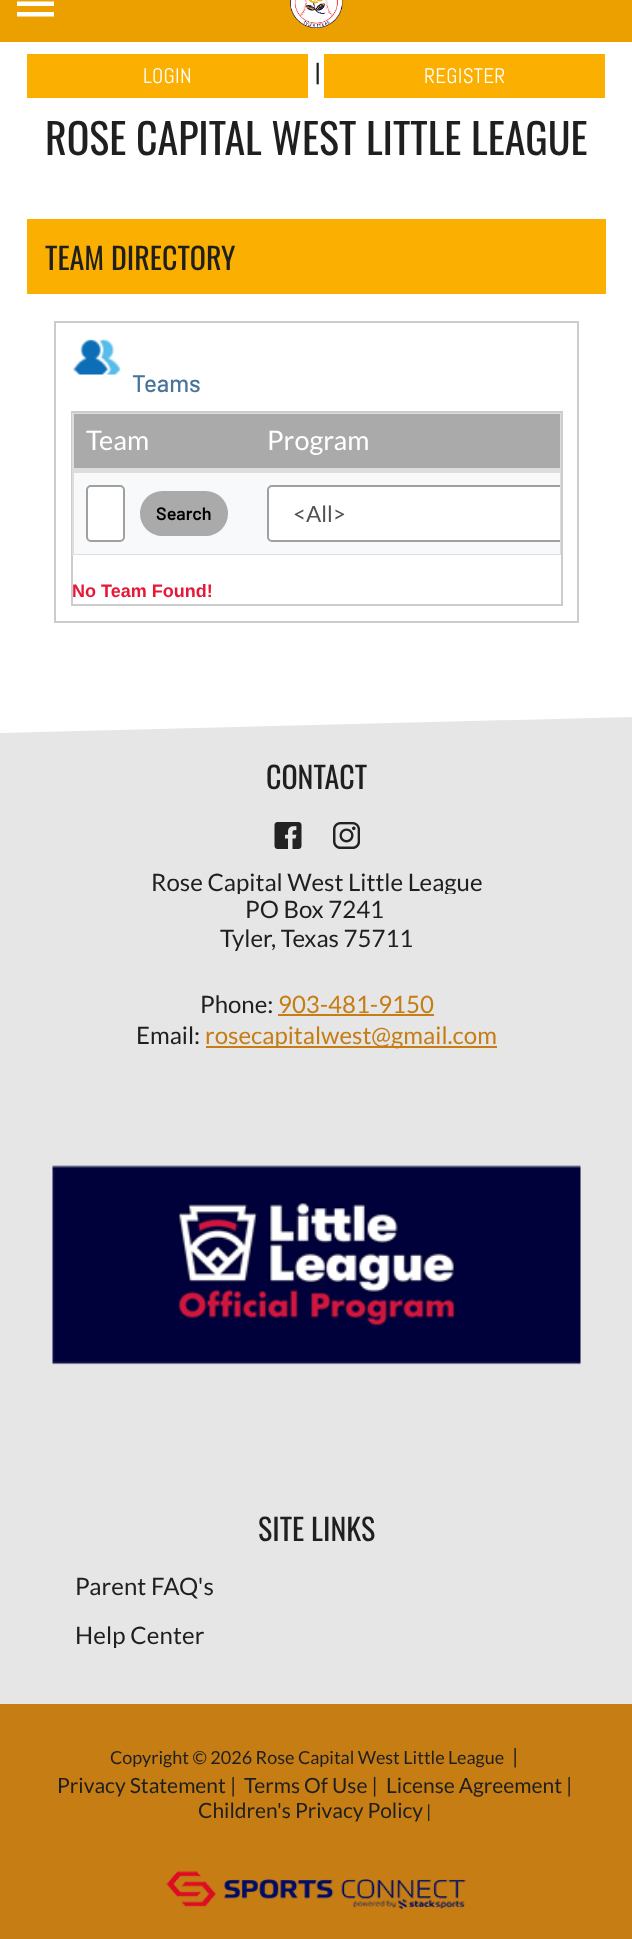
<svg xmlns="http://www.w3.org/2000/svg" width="632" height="1939">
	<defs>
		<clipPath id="clip1"><rect x="17" y="0" width="37" height="23" /></clipPath>
		<clipPath id="clip2"><rect x="74" y="414" width="486" height="140" /></clipPath>
		<clipPath id="clip3"><rect x="75" y="858" width="483" height="36" /></clipPath>
	</defs>
	<rect width="100%" height="100%" fill="#FFFFFF" />
	<rect x="0" y="0" width="632" height="42" fill="#EBA000" />
	<g clip-path="url(#clip1)">
		<path d="M16.5-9H54V-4.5H16.5ZM16.5 1.5H54V6H16.5ZM16.5 12H54V16.5H16.5Z" fill="#FFFFFF" />
	</g>
	<image x="290" y="0" width="53" height="28" href="assets/img1.png" />
	<rect x="27" y="54" width="281" height="44" fill="#FBAF00" />
	<text x="143" y="83" font-family="Abel" font-size="21" letter-spacing="0.25" fill="#FFFFFF">LOGIN</text>
	<text x="315" y="81" font-family="Oswald" font-size="22.5" fill="#1F1F1F">|</text>
	<rect x="324" y="54" width="281" height="44" fill="#FBAF00" />
	<text x="424" y="83" font-family="Abel" font-size="21" letter-spacing="0.25" fill="#FFFFFF">REGISTER</text>
	<text x="45" y="155" font-family="Oswald" font-size="42" fill="#1F1F1F">ROSE CAPITAL WEST LITTLE LEAGUE</text>
	<rect x="27" y="219" width="579" height="75" fill="#FBAF00" />
	<text x="45" y="270" font-family="Oswald" font-size="30" fill="#1F1F1F">TEAM DIRECTORY</text>
	<rect x="55" y="322" width="523" height="300" fill="none" stroke="#CCCCCC" stroke-width="2" />
	<image x="73" y="339" width="48" height="36" href="assets/img2.png" />
	<text x="132" y="392" font-family="Barlow" font-size="24" font-weight="500" fill="#48749B">Teams</text>
	<rect x="72" y="412" width="490" height="193" fill="none" stroke="#CCCCCC" stroke-width="2" />
	<rect x="73" y="414" width="487" height="140" fill="none" stroke="#DDDDDD" stroke-width="2" />
	<rect x="74" y="414" width="486" height="54" fill="#AAAAAA" />
	<rect x="74" y="468" width="486" height="3" fill="#DDDDDD" />
	<g font-family="Lato" font-size="27" fill="#FFFFFF">
		<text x="86" y="450">Team</text>
		<text x="267" y="450">Program</text>
	</g>
	<rect x="74" y="473" width="486" height="81" fill="#F8F9FA" />
	<rect x="74" y="471" width="486" height="2" fill="#DDDDDD" />
	<rect x="87" y="486" width="37" height="55" rx="4" fill="#FFFFFF" stroke="#A0A0A0" stroke-width="2" />
	<rect x="141" y="492" width="86" height="43" rx="21.5" fill="#AAAAAA" stroke="#AAAAAA" stroke-width="2" />
	<text x="156" y="520" font-family="Barlow" font-size="18" font-weight="600" fill="#000000">Search</text>
	<path d="M272 485H560V542H272C269 542 267 540 267 537V490C267 487 269 485 272 485Z" fill="#FFFFFF" />
	<g clip-path="url(#clip2)">
		<rect x="268" y="486" width="313" height="55" rx="4" fill="none" stroke="#A0A0A0" stroke-width="2" />
	</g>
	<text x="293" y="522" font-family="Lato" font-size="22.5" fill="#525252">&lt;All&gt;</text>
	<text x="72" y="597" font-family="Liberation Sans" font-size="18" font-weight="700" fill="#E51937">No Team Found!</text>
	<path d="M0 733V1704H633V717Z" fill="#E6E6E6" />
	<text x="266" y="789" font-family="Oswald" font-size="30" fill="#1F1F1F">CONTACT</text>
	<image x="274" y="822" width="28" height="27" href="assets/img3.png" />
	<image x="333" y="822" width="27" height="27" href="assets/img4.png" />
	<g clip-path="url(#clip3)">
		<text x="151" y="891" font-family="Lato" font-size="24" fill="#1F1F1F">Rose Capital West Little League</text>
	</g>
	<g font-family="Lato" font-size="24" fill="#1F1F1F">
		<text x="245" y="918">PO Box 7241</text>
		<text x="220" y="947">Tyler, Texas 75711</text>
		<text x="200" y="1013">Phone:</text>
	</g>
	<text x="278" y="1013" font-family="Lato" font-size="24" fill="#C57D14">903-481-9150</text>
	<rect x="278" y="1014" width="156" height="2" fill="#C57D14" />
	<text x="136" y="1044" font-family="Lato" font-size="24" fill="#1F1F1F">Email:</text>
	<rect x="206" y="1046" width="291" height="2" fill="#C57D14" />
	<text x="205" y="1044" font-family="Lato" font-size="24" fill="#C57D14">rosecapitalwest@gmail.com</text>
	<image x="52" y="1165" width="529" height="200" href="assets/img5.png" />
	<text x="258" y="1541" font-family="Oswald" font-size="30" fill="#1F1F1F">SITE LINKS</text>
	<g font-family="Lato" font-size="24" letter-spacing="0.1" fill="#1F1F1F">
		<text x="75" y="1595">Parent FAQ's</text>
		<text x="75" y="1644">Help Center</text>
	</g>
	<rect x="0" y="1704" width="632" height="235" fill="#C57D14" />
	<text x="110" y="1764" font-family="Lato" font-size="18" fill="#1F1F1F">Copyright © 2026 Rose Capital West Little League</text>
	<g font-family="Lato" font-size="21" fill="#1F1F1F">
		<text x="512" y="1764">|</text>
		<text x="57" y="1793">Privacy Statement |</text>
		<text x="244" y="1793">Terms Of Use |</text>
		<text x="386" y="1793">License Agreement |</text>
		<text x="198" y="1818">Children's Privacy Policy</text>
	</g>
	<text x="426" y="1818" font-family="Lato" font-size="18" fill="#1F1F1F">|</text>
	<image x="166" y="1871" width="300" height="38" href="assets/img6.png" />
</svg>
